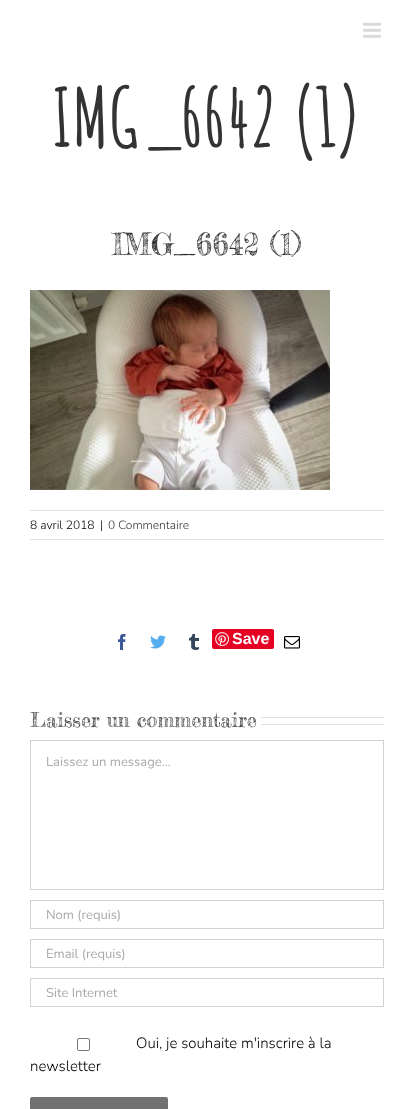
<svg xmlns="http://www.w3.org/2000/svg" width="414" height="1109">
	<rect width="100%" height="100%" fill="#FFFFFF" />
	<image x="363" y="22" width="18" height="16" href="assets/img1.png" />
	<text x="52" y="147" font-family="Amatic SC" font-size="80" font-weight="700" fill="#333333">IMG_6642 (1)</text>
	<text x="112" y="255" font-family="Fredericka the Great" font-size="30" fill="#333333">IMG_6642 (1)</text>
	<image x="30" y="290" width="300" height="200" href="assets/img2.png" />
	<rect x="30" y="510" width="354" height="1" fill="#E0DEDE" />
	<rect x="30" y="539" width="354" height="1" fill="#E0DEDE" />
	<g font-family="Nunito" font-size="12" font-weight="300" fill="#000000">
		<text x="30" y="529">8 avril 2018</text>
		<text x="100" y="529">|</text>
	</g>
	<text x="108" y="529" font-family="Nunito" font-size="12" font-weight="300" fill="#333333">0 Commentaire</text>
	<image x="118" y="634" width="8" height="16" href="assets/img3.png" />
	<image x="150" y="635" width="16" height="14" href="assets/img4.png" />
	<image x="189" y="634" width="10" height="16" href="assets/img5.png" />
	<rect x="212" y="629" width="62" height="20" rx="2" fill="#E60023" />
	<image x="215" y="632" width="14" height="14" href="assets/img6.png" />
	<text x="232" y="644" font-family="Liberation Sans" font-size="16" font-weight="700" fill="#FFFFFF">Save</text>
	<image x="284" y="636" width="16" height="13" href="assets/img7.png" />
	<text x="30" y="727" font-family="Fredericka the Great" font-size="20" fill="#333333">Laisser un commentaire</text>
	<rect x="261" y="717" width="123" height="1" fill="#E0DEDE" />
	<rect x="261" y="724" width="123" height="1" fill="#E0DEDE" />
	<rect x="30.5" y="740.5" width="353" height="149" fill="none" stroke="#D2D2D2" />
	<text x="46" y="766" font-family="Nunito" font-size="13" fill="#AAA9A9">Laissez un message...</text>
	<rect x="30.5" y="900.5" width="353" height="28" fill="none" stroke="#D2D2D2" />
	<text x="46" y="919" font-family="Nunito" font-size="13" fill="#AAA9A9">Nom (requis)</text>
	<rect x="30.5" y="939.5" width="353" height="28" fill="none" stroke="#D2D2D2" />
	<text x="46" y="958" font-family="Nunito" font-size="13" fill="#AAA9A9">Email (requis)</text>
	<rect x="30.5" y="978.5" width="353" height="28" fill="none" stroke="#D2D2D2" />
	<text x="46" y="997" font-family="Nunito" font-size="13" fill="#AAA9A9">Site Internet</text>
	<rect x="77.5" y="1038.5" width="12" height="12" rx="1.5" fill="none" stroke="#767676" />
	<g font-family="Nunito" font-size="15" font-weight="300" fill="#000000">
		<text x="136" y="1048">Oui, je souhaite m'inscrire à la</text>
		<text x="30" y="1071">newsletter</text>
	</g>
	<rect x="30" y="1097" width="138" height="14" rx="2" fill="#727272" />
</svg>
